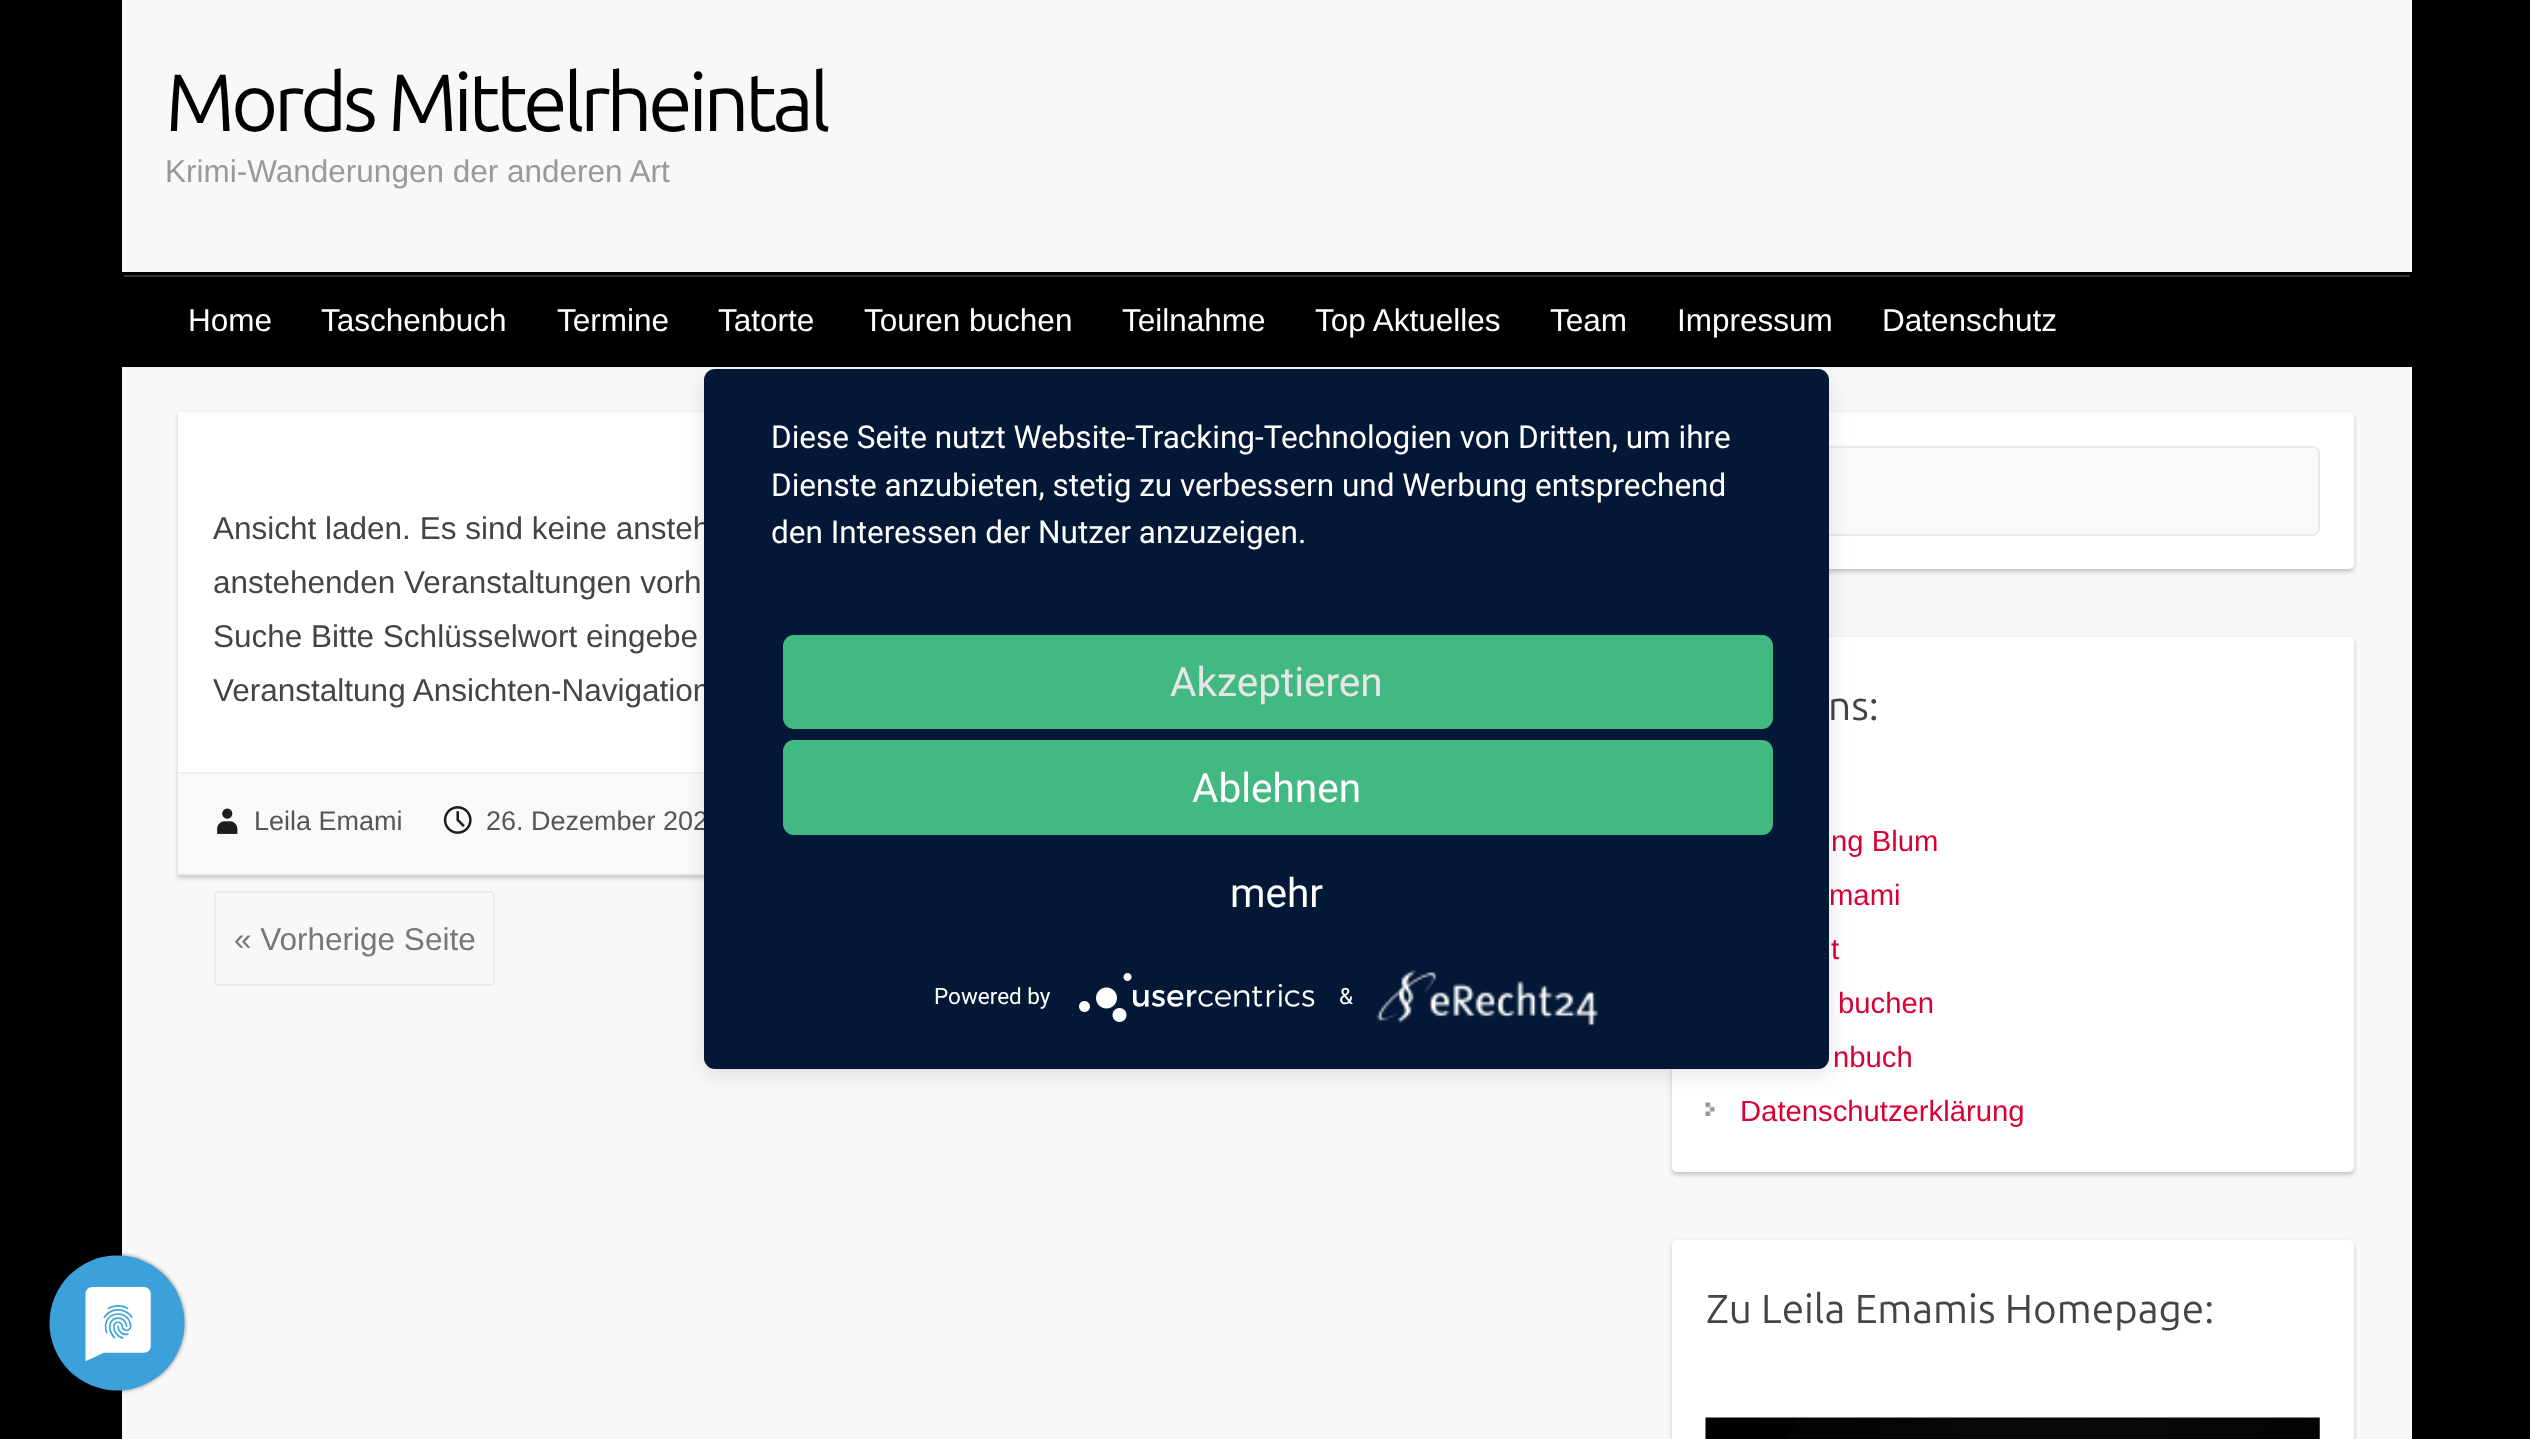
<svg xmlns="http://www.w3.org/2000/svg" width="2530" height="1439">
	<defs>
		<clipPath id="clip1"><rect x="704" y="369" width="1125" height="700" rx="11" /></clipPath>
	</defs>
	<rect width="100%" height="100%" fill="#000000" />
	<rect x="122" y="0" width="2290" height="1439" fill="#F8F8F8" />
	<text x="165" y="131" font-family="Ubuntu" font-size="81" letter-spacing="-4.5" fill="#000000">Mords Mittelrheintal</text>
	<text x="165" y="182" font-family="Liberation Sans" font-size="31.5" fill="#999999">Krimi-Wanderungen der anderen Art</text>
	<rect x="122" y="272" width="2290" height="95" fill="#000000" />
	<rect x="124" y="275" width="2286" height="2" fill="#333333" />
	<g font-family="Liberation Sans" font-size="31.5" fill="#FFFFFF">
		<text x="188" y="331">Home</text>
		<text x="321" y="331">Taschenbuch</text>
		<text x="557" y="331">Termine</text>
		<text x="718" y="331">Tatorte</text>
		<text x="864" y="331">Touren buchen</text>
		<text x="1122" y="331">Teilnahme</text>
		<text x="1315" y="331">Top Aktuelles</text>
		<text x="1550" y="331">Team</text>
		<text x="1677" y="331">Impressum</text>
		<text x="1882" y="331">Datenschutz</text>
	</g>
	<rect x="178" y="414" width="1429" height="464" fill="#000000" fill-opacity="0.2" filter="blur(2px)" />
	<rect x="178" y="412" width="526" height="360" fill="#FFFFFF" />
	<g font-family="Liberation Sans" font-size="31.5" fill="#444444">
		<text x="213" y="539">Ansicht laden. Es sind keine ansteh</text>
		<text x="213" y="593">anstehenden Veranstaltungen vorh</text>
		<text x="213" y="647">Suche Bitte Schlüsselwort eingebe</text>
		<text x="213" y="701">Veranstaltung Ansichten-Navigation</text>
	</g>
	<rect x="178" y="774" width="526" height="99" fill="#F9F9F9" />
	<rect x="178" y="772" width="526" height="2" fill="#F0F0F0" />
	<rect x="178" y="873" width="526" height="2" fill="#F0F0F0" />
	<image x="217" y="808" width="21" height="26" href="assets/img1.png" />
	<text x="254" y="830" font-family="Liberation Sans" font-size="27" fill="#555555">Leila Emami</text>
	<image x="443" y="806" width="29" height="28" href="assets/img2.png" />
	<text x="486" y="830" font-family="Liberation Sans" font-size="27" fill="#555555">26. Dezember 202</text>
	<rect x="215" y="892" width="279" height="93" rx="4" fill="none" stroke="#EAEAEA" stroke-width="2" />
	<text x="234" y="950" font-family="Liberation Sans" font-size="31.5" fill="#777777">« Vorherige Seite</text>
	<rect x="1672" y="414" width="682" height="158" rx="5" fill="#000000" fill-opacity="0.2" filter="blur(2px)" />
	<rect x="1672" y="412" width="682" height="157" rx="5" fill="#FFFFFF" />
	<rect x="1707" y="447" width="612" height="88" rx="6" fill="#F9F9F9" stroke="#EAEAEA" stroke-width="2" />
	<rect x="1672" y="639" width="682" height="536" rx="5" fill="#000000" fill-opacity="0.2" filter="blur(2px)" />
	<rect x="1672" y="637" width="682" height="535" rx="5" fill="#FFFFFF" />
	<text x="1828" y="720" font-family="Ubuntu" font-size="40.5" fill="#444444">ns:</text>
	<g font-family="Liberation Sans" font-size="29.25" fill="#D90035">
		<text x="1831" y="851">ng Blum</text>
		<text x="1829" y="905">mami</text>
		<text x="1831" y="959">t</text>
		<text x="1838" y="1013">buchen</text>
		<text x="1833" y="1067">nbuch</text>
	</g>
	<image x="1705" y="1102" width="10" height="14" href="assets/img3.png" />
	<text x="1740" y="1121" font-family="Liberation Sans" font-size="29.25" fill="#D90035">Datenschutzerklärung</text>
	<rect x="1672" y="1242" width="682" height="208" rx="5" fill="#000000" fill-opacity="0.2" filter="blur(2px)" />
	<rect x="1672" y="1240" width="682" height="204" rx="5" fill="#FFFFFF" />
	<text x="1706" y="1323" font-family="Ubuntu" font-size="40.5" fill="#444444">Zu Leila Emamis Homepage:</text>
	<image x="1705" y="1417" width="615" height="22" href="assets/img4.png" />
	<rect x="704" y="376" width="1125" height="700" rx="11" fill="#000000" fill-opacity="0.1" filter="blur(11px)" />
	<g clip-path="url(#clip1)">
		<rect x="704" y="383" width="1125" height="699" fill="#000000" fill-opacity="0.3" filter="blur(40.5px)" />
	</g>
	<rect x="704" y="369" width="1125" height="700" rx="11" fill="#021836" />
	<g font-family="Roboto" font-size="31.5" fill="#FFFFFF">
		<text x="771" y="448">Diese Seite nutzt Website-Tracking-Technologien von Dritten, um ihre</text>
		<text x="771" y="496">Dienste anzubieten, stetig zu verbessern und Werbung entsprechend</text>
		<text x="771" y="543">den Interessen der Nutzer anzuzeigen.</text>
	</g>
	<rect x="783" y="635" width="990" height="94" rx="11" fill="#42B983" />
	<text x="1170" y="696" font-family="Roboto" font-size="40.5" fill="#E6E6E6">Akzeptieren</text>
	<rect x="783" y="740" width="990" height="95" rx="11" fill="#42B983" />
	<g font-family="Roboto" font-size="40.5" fill="#FFFFFF">
		<text x="1192" y="802">Ablehnen</text>
		<text x="1230" y="907">mehr</text>
	</g>
	<text x="934" y="1004" font-family="Roboto" font-size="22.5" fill="#FFFFFF">Powered by</text>
	<image x="1079" y="973" width="236" height="49" href="assets/img5.png" />
	<text x="1339" y="1004" font-family="Roboto" font-size="22.5" fill="#FFFFFF">&amp;</text>
	<image x="1376" y="970" width="222" height="56" href="assets/img6.png" />
	<image x="49" y="1252" width="139" height="142" href="assets/img7.png" />
</svg>
